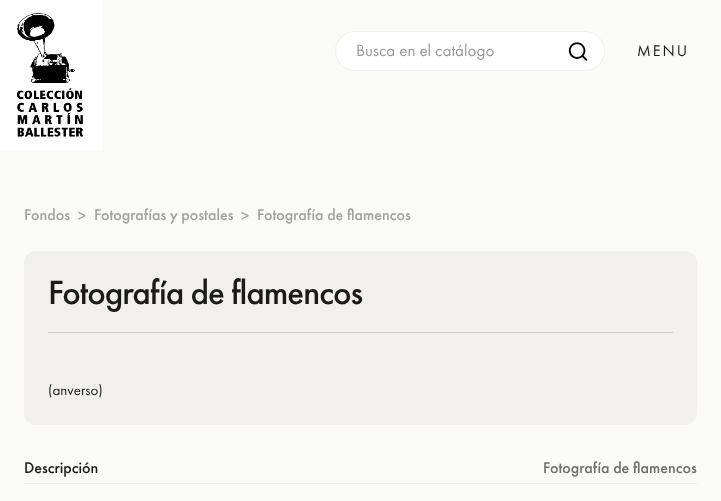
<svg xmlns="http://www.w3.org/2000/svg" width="721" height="501">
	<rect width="100%" height="100%" fill="#FAFAF7" />
	<rect x="0" y="0" width="102" height="151" fill="#FFFFFF" />
	<image x="16" y="13" width="67" height="124" href="assets/img1.png" />
	<rect x="335.5" y="31.5" width="269" height="39" rx="19.5" fill="#FFFFFF" stroke="#F2F0ED" />
	<text x="356" y="56" font-family="Futura PT" font-size="17" fill="#999999">Busca en el catálogo</text>
	<image x="568" y="42" width="20" height="19" href="assets/img2.png" />
	<text x="637" y="56" font-family="Futura PT" font-size="16" letter-spacing="2" fill="#1A1A1A">MENU</text>
	<g font-family="Futura PT" font-size="16" font-weight="500" fill="#A1A1A1">
		<text x="24" y="220">Fondos</text>
		<text x="78" y="221">&gt;</text>
		<text x="94" y="220">Fotografías y postales</text>
		<text x="241" y="221">&gt;</text>
		<text x="257" y="220">Fotografía de flamencos</text>
	</g>
	<rect x="24" y="251" width="673" height="174" rx="12" fill="#F2F0ED" />
	<rect x="48" y="332" width="625" height="1" fill="#D1CDC6" />
	<text x="48" y="304" font-family="Futura PT" font-size="35" font-weight="500" letter-spacing="-1" fill="#1A1A1A">Fotografía de flamencos</text>
	<text x="48" y="395" font-family="Futura PT" font-size="15" fill="#1A1A1A">(anverso)</text>
	<rect x="24" y="483" width="673" height="1" fill="#ECEBE8" />
	<text x="24" y="473" font-family="Futura PT" font-size="16" font-weight="500" fill="#1A1A1A">Descripción</text>
	<text x="543" y="473" font-family="Futura PT" font-size="16" font-weight="500" fill="#6F6D6A">Fotografía de flamencos</text>
</svg>
